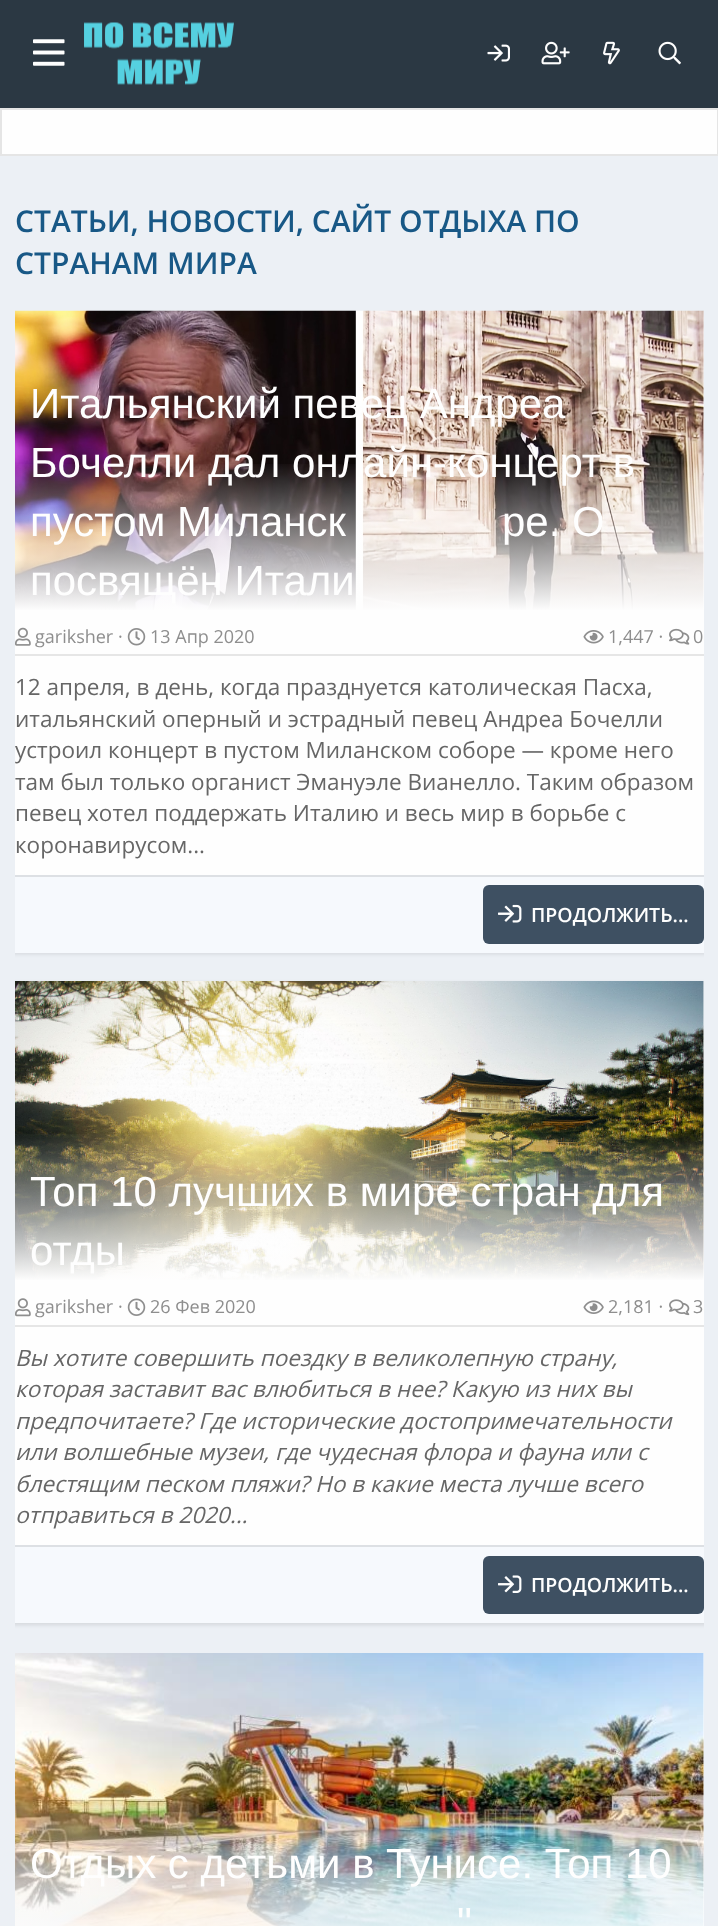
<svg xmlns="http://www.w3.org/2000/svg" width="718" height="1926">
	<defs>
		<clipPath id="clip1"><rect x="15" y="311" width="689" height="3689" /></clipPath>
		<linearGradient id="g1" gradientUnits="userSpaceOnUse" x1="359" y1="461" x2="359" y2="611"><stop offset="0" stop-color="#FEFEFE" stop-opacity="0" /><stop offset="1" stop-color="#FEFEFE" /></linearGradient>
		<linearGradient id="g2" gradientUnits="userSpaceOnUse" x1="359" y1="1131" x2="359" y2="1281"><stop offset="0" stop-color="#FEFEFE" stop-opacity="0" /><stop offset="1" stop-color="#FEFEFE" /></linearGradient>
		<linearGradient id="g3" gradientUnits="userSpaceOnUse" x1="359" y1="1803" x2="359" y2="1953"><stop offset="0" stop-color="#FEFEFE" stop-opacity="0" /><stop offset="1" stop-color="#FEFEFE" /></linearGradient>
	</defs>
	<rect width="100%" height="100%" fill="#ECF0F5" />
	<rect x="0" y="0" width="718" height="108" fill="#2B3843" />
	<image x="33" y="39" width="32" height="27" href="assets/img1.png" />
	<image x="84" y="22" width="150" height="63" href="assets/img2.png" />
	<image x="487" y="44" width="23" height="18" href="assets/img3.png" />
	<image x="541" y="41" width="29" height="24" href="assets/img4.png" />
	<image x="603" y="41" width="17" height="24" href="assets/img5.png" />
	<image x="658" y="41" width="23" height="24" href="assets/img6.png" />
	<rect x="1" y="109" width="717" height="46" fill="#FEFEFE" stroke="#E5E5E5" stroke-width="2" />
	<g font-family="Open Sans" font-size="30" font-weight="600" fill="#185886">
		<text x="15" y="232">СТАТЬИ, НОВОСТИ, САЙТ ОТДЫХА ПО</text>
		<text x="15" y="274">СТРАНАМ МИРА</text>
	</g>
	<g clip-path="url(#clip1)">
		<rect x="0" y="312" width="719" height="642" rx="6" fill="#000000" fill-opacity="0.1" filter="blur(2px)" />
	</g>
	<rect x="15" y="311" width="689" height="564" fill="#FEFEFE" />
	<image x="15" y="310" width="689" height="300" href="assets/img7.png" />
	<rect x="15" y="464" width="689" height="146" fill="url(#g1)" />
	<g font-family="Liberation Sans" font-size="42" fill="#FEFEFE">
		<text x="30" y="418">Итальянский певец Андреа</text>
		<text x="30" y="477">Бочелли дал онлайн-концерт в</text>
		<text x="30" y="536">пустом Миланск</text>
		<text x="502" y="536">ре. О</text>
		<text x="30" y="595">посвящён Итали</text>
	</g>
	<rect x="15" y="654" width="689" height="2" fill="#E6E6E6" />
	<image x="15" y="627" width="16" height="19" href="assets/img8.png" />
	<text x="35" y="643" font-family="Open Sans" font-size="18" fill="#8E8E8E">gariksher ·</text>
	<image x="127" y="628" width="19" height="18" href="assets/img9.png" />
	<text x="150" y="643" font-family="Open Sans" font-size="18" fill="#8E8E8E">13 Апр 2020</text>
	<image x="583" y="630" width="21" height="14" href="assets/img10.png" />
	<text x="608" y="643" font-family="Open Sans" font-size="18" fill="#8E8E8E">1,447 ·</text>
	<image x="669" y="628" width="21" height="17" href="assets/img11.png" />
	<text x="693" y="643" font-family="Open Sans" font-size="18" fill="#8E8E8E">0</text>
	<g font-family="Open Sans" font-size="22.5" fill="#666666">
		<text x="15" y="695">12 апреля, в день, когда празднуется католическая Пасха,</text>
		<text x="15" y="727">итальянский оперный и эстрадный певец Андреа Бочелли</text>
		<text x="15" y="758">устроил концерт в пустом Миланском соборе — кроме него</text>
		<text x="15" y="790">там был только органист Эмануэле Вианелло. Таким образом</text>
		<text x="15" y="821">певец хотел поддержать Италию и весь мир в борьбе с</text>
		<text x="15" y="853">коронавирусом...</text>
	</g>
	<rect x="15" y="877" width="689" height="76" fill="#F6F9FD" />
	<rect x="15" y="875" width="689" height="2" fill="#DDE0E4" />
	<rect x="483" y="885" width="221" height="59" rx="6" fill="#3E5062" />
	<image x="498" y="904" width="24" height="19" href="assets/img12.png" />
	<text x="531" y="922" font-family="Open Sans" font-size="19.5" font-weight="600" fill="#FEFEFE">ПРОДОЛЖИТЬ...</text>
	<g clip-path="url(#clip1)">
		<rect x="0" y="983" width="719" height="642" rx="6" fill="#000000" fill-opacity="0.1" filter="blur(2px)" />
	</g>
	<rect x="15" y="981" width="689" height="564" fill="#FEFEFE" />
	<image x="15" y="981" width="689" height="299" href="assets/img13.png" />
	<rect x="15" y="1134" width="689" height="146" fill="url(#g2)" />
	<g font-family="Liberation Sans" font-size="42" fill="#FEFEFE">
		<text x="30" y="1206">Топ 10 лучших в мире стран для</text>
		<text x="30" y="1265">отды</text>
	</g>
	<rect x="15" y="1325" width="689" height="2" fill="#E6E6E6" />
	<image x="15" y="1298" width="16" height="19" href="assets/img14.png" />
	<text x="35" y="1313" font-family="Open Sans" font-size="18" fill="#8E8E8E">gariksher ·</text>
	<image x="127" y="1298" width="19" height="18" href="assets/img15.png" />
	<text x="150" y="1313" font-family="Open Sans" font-size="18" fill="#8E8E8E">26 Фев 2020</text>
	<image x="583" y="1300" width="21" height="14" href="assets/img16.png" />
	<text x="608" y="1313" font-family="Open Sans" font-size="18" fill="#8E8E8E">2,181 ·</text>
	<image x="669" y="1299" width="21" height="17" href="assets/img17.png" />
	<text x="693" y="1313" font-family="Open Sans" font-size="18" fill="#8E8E8E">3</text>
	<g font-family="Open Sans" font-size="22.5" font-style="italic" fill="#666666">
		<text x="15" y="1366">Вы хотите совершить поездку в великолепную страну,</text>
		<text x="15" y="1397">которая заставит вас влюбиться в нее? Какую из них вы</text>
		<text x="15" y="1429">предпочитаете? Где исторические достопримечательности</text>
		<text x="15" y="1460">или волшебные музеи, где чудесная флора и фауна или с</text>
		<text x="15" y="1492">блестящим песком пляжи? Но в какие места лучше всего</text>
		<text x="15" y="1523">отправиться в 2020...</text>
	</g>
	<rect x="15" y="1547" width="689" height="76" fill="#F6F9FD" />
	<rect x="15" y="1545" width="689" height="2" fill="#DDE0E4" />
	<rect x="483" y="1556" width="221" height="58" rx="6" fill="#3E5062" />
	<image x="498" y="1575" width="24" height="18" href="assets/img18.png" />
	<text x="531" y="1592" font-family="Open Sans" font-size="19.5" font-weight="600" fill="#FEFEFE">ПРОДОЛЖИТЬ...</text>
	<rect x="703" y="1653" width="1" height="273" fill="#FEFEFE" />
	<image x="15" y="1653" width="689" height="273" href="assets/img19.png" />
	<rect x="15" y="1806" width="689" height="120" fill="url(#g3)" />
	<g font-family="Liberation Sans" font-size="42" fill="#FEFEFE">
		<text x="30" y="1878">Отдых с детьми в Тунисе. Топ 10</text>
		<text x="457" y="1937">"</text>
	</g>
</svg>
